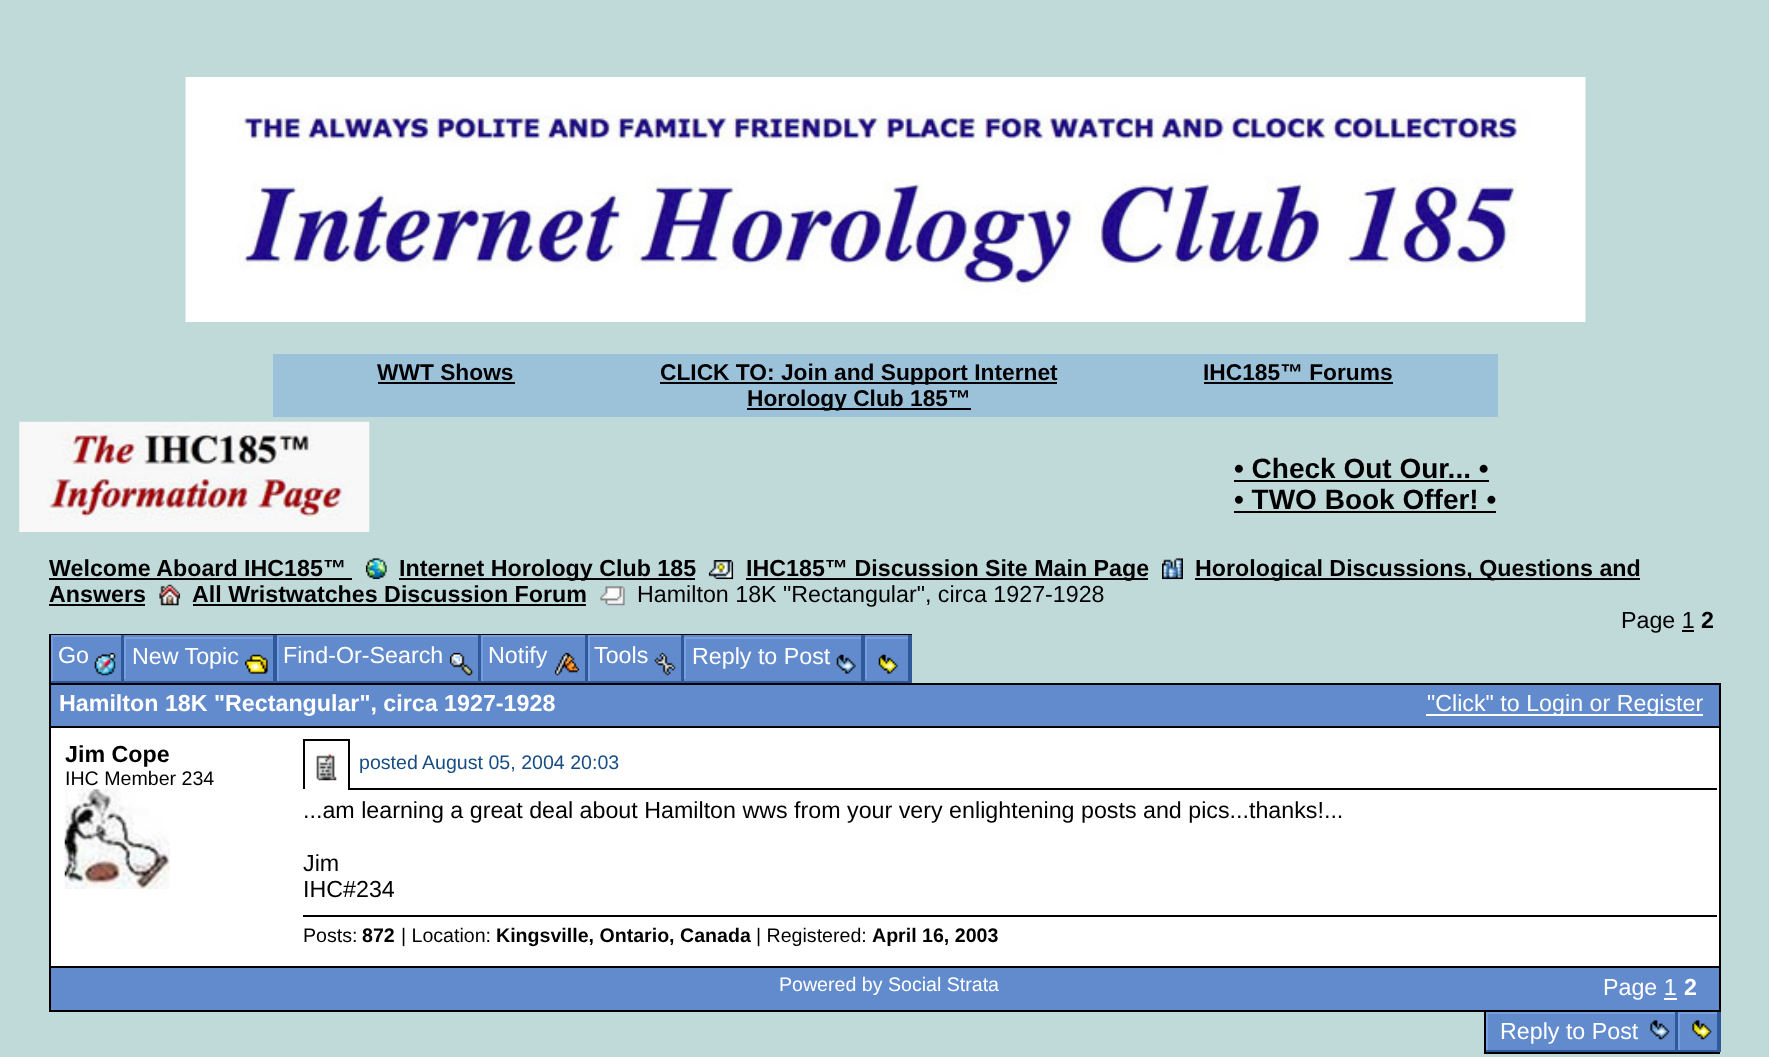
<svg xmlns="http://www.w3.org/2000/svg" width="1769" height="1057">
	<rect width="100%" height="100%" fill="#C0D9D9" />
	<image x="185" y="77" width="1401" height="245" href="assets/img1.png" />
	<rect x="273" y="354" width="1225" height="63" fill="#9CC2DA" />
	<text x="377" y="380" font-family="Liberation Sans" font-size="22.75" font-weight="700" fill="#000002">WWT Shows</text>
	<rect x="378" y="382" width="137" height="2" fill="#000002" />
	<rect x="660" y="382" width="397" height="2" fill="#000002" />
	<text x="660" y="380" font-family="Liberation Sans" font-size="22.75" font-weight="700" fill="#000002">CLICK TO: Join and Support Internet</text>
	<rect x="747" y="408" width="224" height="2" fill="#000002" />
	<g font-family="Liberation Sans" font-size="22.75" font-weight="700" fill="#000002">
		<text x="747" y="406">Horology Club 185™</text>
		<text x="1203" y="380">IHC185™ Forums</text>
	</g>
	<rect x="1204" y="382" width="189" height="2" fill="#000002" />
	<image x="19" y="421" width="351" height="111" href="assets/img2.png" />
	<text x="1234" y="478" font-family="Liberation Sans" font-size="28" font-weight="700" fill="#000002">• Check Out Our... •</text>
	<rect x="1234" y="480" width="255" height="2" fill="#000002" />
	<text x="1234" y="509" font-family="Liberation Sans" font-size="28" font-weight="700" fill="#000002">• TWO Book Offer! •</text>
	<rect x="1234" y="511" width="262" height="2" fill="#000002" />
	<text x="49" y="576" font-family="Liberation Sans" font-size="23.25" font-weight="700" fill="#000002">Welcome Aboard IHC185™</text>
	<rect x="49" y="578" width="303" height="2" fill="#000002" />
	<image x="365" y="558" width="22" height="22" href="assets/img3.png" />
	<rect x="399" y="578" width="296" height="2" fill="#000002" />
	<text x="399" y="576" font-family="Liberation Sans" font-size="23.25" font-weight="700" fill="#000002">Internet Horology Club 185</text>
	<image x="708" y="560" width="26" height="20" href="assets/img4.png" />
	<rect x="746" y="578" width="402" height="2" fill="#000002" />
	<text x="746" y="576" font-family="Liberation Sans" font-size="23.25" font-weight="700" fill="#000002">IHC185™ Discussion Site Main Page</text>
	<image x="1162" y="558" width="21" height="22" href="assets/img5.png" />
	<rect x="1195" y="578" width="445" height="2" fill="#000002" />
	<g font-family="Liberation Sans" font-size="23.25" font-weight="700" fill="#000002">
		<text x="1195" y="576">Horological Discussions, Questions and</text>
		<text x="49" y="602">Answers</text>
	</g>
	<rect x="49" y="604" width="96" height="2" fill="#000002" />
	<image x="159" y="584" width="22" height="22" href="assets/img6.png" />
	<text x="192" y="602" font-family="Liberation Sans" font-size="23.25" font-weight="700" fill="#000002">All Wristwatches Discussion Forum</text>
	<rect x="193" y="604" width="393" height="2" fill="#000002" />
	<image x="600" y="586" width="25" height="20" href="assets/img7.png" />
	<g font-family="Liberation Sans" font-size="23.25" fill="#000002">
		<text x="637" y="602">Hamilton 18K "Rectangular", circa 1927-1928</text>
		<text x="1621" y="628">Page 1</text>
	</g>
	<text x="1701" y="628" font-family="Liberation Sans" font-size="23.25" font-weight="700" fill="#000002">2</text>
	<rect x="1682" y="630" width="12" height="2" fill="#000002" />
	<rect x="49" y="634" width="863" height="1" fill="#000001" />
	<rect x="49" y="634" width="2" height="92" fill="#000001" />
	<rect x="53" y="637" width="68" height="44" fill="#628BCD" />
	<rect x="121" y="635" width="3" height="48" fill="#30599B" />
	<rect x="51" y="681" width="73" height="2" fill="#30599B" />
	<rect x="51" y="635" width="70" height="2" fill="#769FE1" />
	<rect x="51" y="635" width="2" height="46" fill="#769FE1" />
	<text x="58" y="663" font-family="Liberation Sans" font-size="23.25" fill="#FFFFFF">Go</text>
	<image x="94" y="652" width="22" height="24" href="assets/img8.png" />
	<rect x="124" y="635" width="149" height="46" fill="#628BCD" />
	<rect x="273" y="635" width="4" height="48" fill="#30599B" />
	<rect x="124" y="681" width="153" height="2" fill="#30599B" />
	<rect x="124" y="637" width="149" height="2" fill="#769FE1" />
	<rect x="124" y="637" width="2" height="42" fill="#769FE1" />
	<text x="132" y="664" font-family="Liberation Sans" font-size="23.25" fill="#FFFFFF">New Topic</text>
	<image x="245" y="654" width="23" height="20" href="assets/img9.png" />
	<rect x="279" y="637" width="199" height="44" fill="#628BCD" />
	<rect x="478" y="635" width="3" height="48" fill="#30599B" />
	<rect x="277" y="681" width="204" height="2" fill="#30599B" />
	<rect x="277" y="635" width="201" height="2" fill="#769FE1" />
	<rect x="277" y="635" width="2" height="46" fill="#769FE1" />
	<text x="283" y="663" font-family="Liberation Sans" font-size="23.25" fill="#FFFFFF">Find-Or-Search</text>
	<image x="449" y="652" width="24" height="24" href="assets/img10.png" />
	<rect x="483" y="637" width="102" height="44" fill="#628BCD" />
	<rect x="585" y="635" width="3" height="48" fill="#30599B" />
	<rect x="481" y="681" width="107" height="2" fill="#30599B" />
	<rect x="481" y="635" width="104" height="2" fill="#769FE1" />
	<rect x="481" y="635" width="2" height="46" fill="#769FE1" />
	<text x="488" y="663" font-family="Liberation Sans" font-size="23.25" fill="#FFFFFF">Notify</text>
	<image x="554" y="652" width="26" height="24" href="assets/img11.png" />
	<rect x="590" y="637" width="91" height="44" fill="#628BCD" />
	<rect x="681" y="635" width="3" height="48" fill="#30599B" />
	<rect x="588" y="681" width="96" height="2" fill="#30599B" />
	<rect x="588" y="635" width="93" height="2" fill="#769FE1" />
	<rect x="588" y="635" width="2" height="46" fill="#769FE1" />
	<text x="594" y="663" font-family="Liberation Sans" font-size="23.25" fill="#FFFFFF">Tools</text>
	<image x="654" y="652" width="22" height="24" href="assets/img12.png" />
	<rect x="684" y="635" width="177" height="46" fill="#628BCD" />
	<rect x="861" y="635" width="4" height="48" fill="#30599B" />
	<rect x="684" y="681" width="181" height="2" fill="#30599B" />
	<rect x="684" y="637" width="177" height="2" fill="#769FE1" />
	<rect x="684" y="637" width="2" height="42" fill="#769FE1" />
	<text x="692" y="664" font-family="Liberation Sans" font-size="23.25" fill="#FFFFFF">Reply to Post</text>
	<image x="836" y="654" width="20" height="20" href="assets/img13.png" />
	<rect x="865" y="635" width="43" height="46" fill="#628BCD" />
	<rect x="908" y="635" width="4" height="48" fill="#30599B" />
	<rect x="865" y="681" width="47" height="2" fill="#30599B" />
	<rect x="865" y="637" width="43" height="2" fill="#769FE1" />
	<rect x="865" y="637" width="2" height="42" fill="#769FE1" />
	<image x="878" y="654" width="20" height="20" href="assets/img14.png" />
	<rect x="51" y="685" width="1668" height="41" fill="#628BCD" />
	<rect x="51" y="683" width="1669" height="2" fill="#000001" />
	<text x="59" y="711" font-family="Liberation Sans" font-size="23.25" font-weight="700" fill="#FFFFFF">Hamilton 18K "Rectangular", circa 1927-1928</text>
	<rect x="1426" y="714" width="277" height="2" fill="#FFFFFF" />
	<text x="1427" y="711" font-family="Liberation Sans" font-size="23.25" fill="#FFFFFF">"Click" to Login or Register</text>
	<rect x="1719" y="683" width="2" height="43" fill="#000001" />
	<rect x="51" y="728" width="1668" height="238" fill="#FFFFFF" />
	<rect x="49" y="726" width="1671" height="2" fill="#000001" />
	<rect x="1719" y="726" width="2" height="240" fill="#000001" />
	<rect x="49" y="726" width="2" height="240" fill="#000001" />
	<text x="65" y="762" font-family="Liberation Sans" font-size="23.25" font-weight="700" fill="#000002">Jim Cope</text>
	<text x="65" y="785" font-family="Liberation Sans" font-size="19.6" fill="#000002">IHC Member 234</text>
	<image x="64" y="789" width="106" height="100" href="assets/img15.png" />
	<rect x="303" y="739" width="45" height="2" fill="#000001" />
	<rect x="303" y="739" width="2" height="50" fill="#000001" />
	<image x="316" y="754" width="21" height="27" href="assets/img16.png" />
	<rect x="348" y="788" width="1369" height="2" fill="#000001" />
	<rect x="348" y="739" width="2" height="50" fill="#000001" />
	<g font-family="Liberation Sans" font-size="19.6" fill="#184D84">
		<text x="359" y="769">posted</text>
		<text x="422" y="769">August 05, 2004 20:03</text>
	</g>
	<g font-family="Liberation Sans" font-size="23.25" fill="#000002">
		<text x="303" y="818">...am learning a great deal about Hamilton wws from your very enlightening posts and pics...thanks!...</text>
		<text x="303" y="871">Jim</text>
		<text x="303" y="897">IHC#234</text>
	</g>
	<rect x="303" y="915" width="1414" height="2" fill="#000001" />
	<text x="303" y="942" font-family="Liberation Sans" font-size="19.6" fill="#000002">Posts:</text>
	<text x="362" y="942" font-family="Liberation Sans" font-size="19.6" font-weight="700" fill="#000002">872</text>
	<text x="401" y="942" font-family="Liberation Sans" font-size="19.6" fill="#000002">| Location:</text>
	<text x="496" y="942" font-family="Liberation Sans" font-size="19.6" font-weight="700" fill="#000002">Kingsville, Ontario, Canada</text>
	<text x="756" y="942" font-family="Liberation Sans" font-size="19.6" fill="#000002">| Registered:</text>
	<text x="872" y="942" font-family="Liberation Sans" font-size="19.6" font-weight="700" fill="#000002">April 16, 2003</text>
	<rect x="51" y="968" width="1668" height="42" fill="#628BCD" />
	<rect x="49" y="966" width="1671" height="2" fill="#000001" />
	<rect x="49" y="1010" width="1654" height="2" fill="#000001" />
	<rect x="49" y="966" width="2" height="46" fill="#000001" />
	<text x="779" y="991" font-family="Liberation Sans" font-size="19.6" fill="#FFFFFF">Powered by Social Strata</text>
	<text x="1603" y="995" font-family="Liberation Sans" font-size="23.25" fill="#FFFFFF">Page 1</text>
	<text x="1684" y="995" font-family="Liberation Sans" font-size="23.25" font-weight="700" fill="#FFFFFF">2</text>
	<rect x="1664" y="998" width="13" height="2" fill="#FFFFFF" />
	<rect x="1719" y="966" width="2" height="46" fill="#000001" />
	<rect x="1703" y="1010" width="17" height="2" fill="#000001" />
	<rect x="1484" y="1052" width="236" height="2" fill="#000001" />
	<rect x="1484" y="1012" width="2" height="42" fill="#000001" />
	<rect x="1488" y="1014" width="187" height="36" fill="#628BCD" />
	<rect x="1675" y="1012" width="3" height="40" fill="#30599B" />
	<rect x="1486" y="1050" width="192" height="2" fill="#30599B" />
	<rect x="1486" y="1012" width="189" height="2" fill="#769FE1" />
	<rect x="1486" y="1012" width="2" height="38" fill="#769FE1" />
	<text x="1500" y="1039" font-family="Liberation Sans" font-size="23.25" fill="#FFFFFF">Reply to Post</text>
	<image x="1650" y="1020" width="20" height="20" href="assets/img17.png" />
	<rect x="1680" y="1014" width="37" height="36" fill="#628BCD" />
	<rect x="1717" y="1012" width="4" height="40" fill="#30599B" />
	<rect x="1678" y="1050" width="42" height="2" fill="#30599B" />
	<rect x="1678" y="1012" width="39" height="2" fill="#769FE1" />
	<rect x="1678" y="1012" width="2" height="38" fill="#769FE1" />
	<image x="1692" y="1020" width="20" height="20" href="assets/img18.png" />
</svg>
